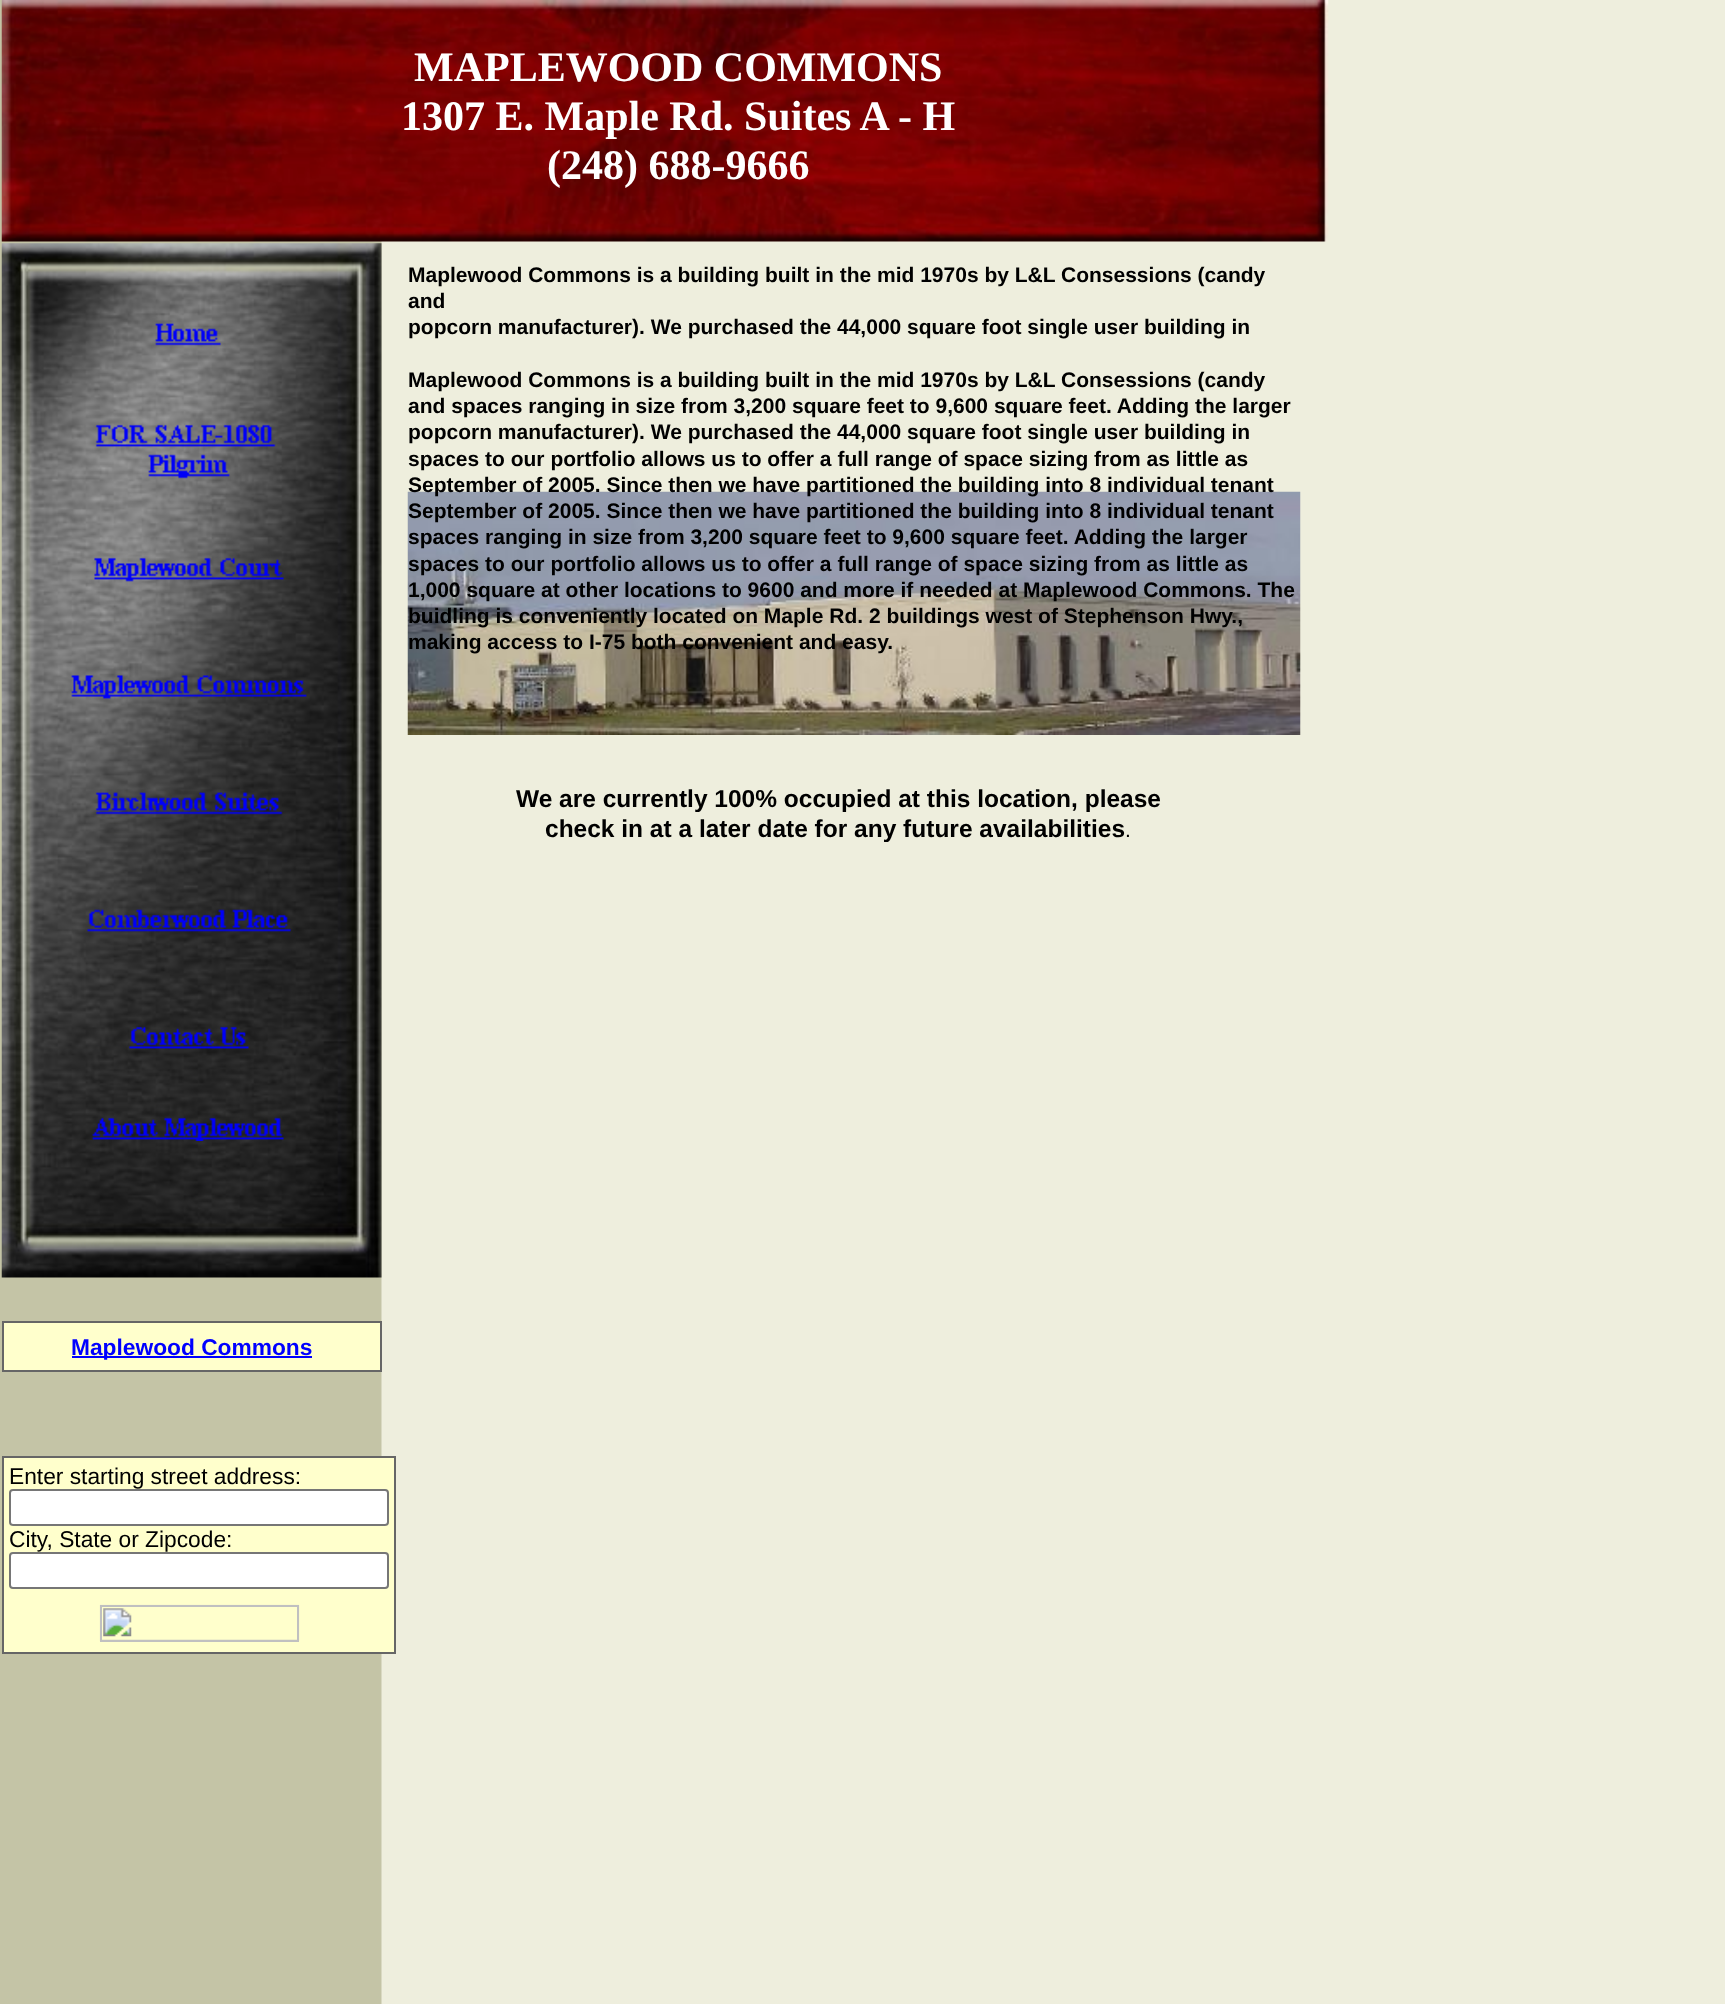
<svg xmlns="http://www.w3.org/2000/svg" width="1725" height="2004">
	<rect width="100%" height="100%" fill="#FFFFFF" />
	<image x="0" y="0" width="1725" height="2004" href="assets/img1.png" />
	<image x="1" y="0" width="1328" height="242" href="assets/img2.png" />
	<g font-family="Liberation Serif" font-size="42" font-weight="700" fill="#FFFFFF">
		<text x="414" y="81">MAPLEWOOD COMMONS</text>
		<text x="401" y="130">1307 E. Maple Rd. Suites A - H</text>
		<text x="547" y="179">(248) 688-9666</text>
	</g>
	<image x="1" y="243" width="381" height="1035" href="assets/img3.png" />
	<g font-family="Liberation Sans" font-size="21" font-weight="700" fill="#000000">
		<text x="408" y="282">Maplewood Commons is a building built in the mid 1970s by L&amp;L Consessions (candy</text>
		<text x="408" y="308">and</text>
		<text x="408" y="334">popcorn manufacturer). We purchased the 44,000 square foot single user building in</text>
		<text x="408" y="387">Maplewood Commons is a building built in the mid 1970s by L&amp;L Consessions (candy</text>
		<text x="408" y="413">and spaces ranging in size from 3,200 square feet to 9,600 square feet. Adding the larger</text>
		<text x="408" y="439">popcorn manufacturer). We purchased the 44,000 square foot single user building in</text>
		<text x="408" y="466">spaces to our portfolio allows us to offer a full range of space sizing from as little as</text>
	</g>
	<image x="407" y="491" width="894" height="244" href="assets/img12.png" />
	<g font-family="Liberation Sans" font-size="21" font-weight="700" fill="#000000">
		<text x="408" y="492">September of 2005. Since then we have partitioned the building into 8 individual tenant</text>
		<text x="408" y="518">September of 2005. Since then we have partitioned the building into 8 individual tenant</text>
		<text x="408" y="544">spaces ranging in size from 3,200 square feet to 9,600 square feet. Adding the larger</text>
		<text x="408" y="571">spaces to our portfolio allows us to offer a full range of space sizing from as little as</text>
		<text x="408" y="597">1,000 square at other locations to 9600 and more if needed at Maplewood Commons. The</text>
		<text x="408" y="623">buidling is conveniently located on Maple Rd. 2 buildings west of Stephenson Hwy.,</text>
		<text x="408" y="649">making access to I-75 both convenient and easy.</text>
	</g>
	<image x="155" y="323" width="66" height="23" href="assets/img4.png" />
	<image x="95" y="424" width="181" height="55" href="assets/img5.png" />
	<image x="94" y="557" width="190" height="25" href="assets/img6.png" />
	<image x="71" y="675" width="236" height="24" href="assets/img7.png" />
	<image x="95" y="792" width="188" height="23" href="assets/img8.png" />
	<image x="87" y="909" width="204" height="23" href="assets/img9.png" />
	<image x="129" y="1026" width="120" height="23" href="assets/img10.png" />
	<image x="92" y="1117" width="192" height="24" href="assets/img11.png" />
	<g font-family="Liberation Sans" font-size="24.5" font-weight="700" fill="#000000">
		<text x="516" y="807">We are currently 100% occupied at this location, please</text>
		<text x="545" y="837">check in at a later date for any future availabilities</text>
	</g>
	<text x="1125" y="837" font-family="Liberation Sans" font-size="21" fill="#000000">.</text>
	<rect x="2" y="1321" width="380" height="51" fill="#666666" />
	<rect x="4" y="1323" width="376" height="47" fill="#FFFFCC" />
	<rect x="72" y="1356" width="240" height="2" fill="#0000FF" />
	<text x="71" y="1355" font-family="Liberation Sans" font-size="22.75" font-weight="700" fill="#0000FF">Maplewood Commons</text>
	<rect x="2" y="1456" width="394" height="198" fill="#666666" />
	<rect x="4" y="1458" width="390" height="194" fill="#FFFFCC" />
	<text x="9" y="1484" font-family="Liberation Sans" font-size="22.75" fill="#000000">Enter starting street address:</text>
	<rect x="10" y="1490" width="378" height="35" rx="3" fill="#FFFFFF" stroke="#767676" stroke-width="2" />
	<text x="9" y="1547" font-family="Liberation Sans" font-size="22.75" fill="#000000">City, State or Zipcode:</text>
	<rect x="10" y="1553" width="378" height="35" rx="3" fill="#FFFFFF" stroke="#767676" stroke-width="2" />
	<image x="99" y="1604" width="201" height="37" href="assets/img13.png" />
	<rect x="101" y="1606" width="197" height="35" fill="none" stroke="#C0C0C0" stroke-width="2" />
</svg>
